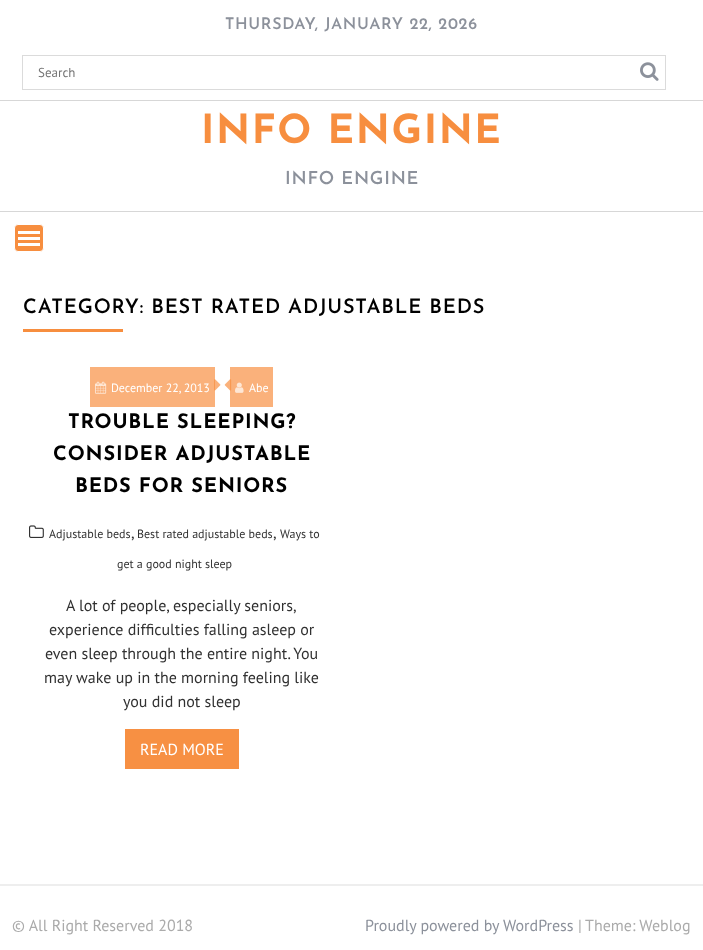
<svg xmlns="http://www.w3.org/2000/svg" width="703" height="950">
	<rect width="100%" height="100%" fill="#FFFFFF" />
	<rect x="0" y="100" width="703" height="1" fill="#D7D7D7" />
	<text x="225" y="29" font-family="Josefin Sans" font-size="16" font-weight="600" letter-spacing="0.65" fill="#8C919B">THURSDAY, JANUARY 22, 2026</text>
	<rect x="22.5" y="55.5" width="643" height="34" fill="none" stroke="#DBDBDB" />
	<text x="38" y="77" font-family="PT Sans" font-size="13" fill="#757575">Search</text>
	<image x="640" y="62" width="19" height="19" href="assets/img1.png" />
	<text x="201" y="143" font-family="Josefin Sans" font-size="40" font-weight="700" letter-spacing="1.6" fill="#F78E3F">INFO ENGINE</text>
	<text x="285" y="184" font-family="Josefin Sans" font-size="18" font-weight="600" letter-spacing="0.75" fill="#8C919B">INFO ENGINE</text>
	<rect x="0" y="211" width="703" height="1" fill="#D7D7D7" />
	<rect x="14.5" y="224.5" width="29" height="27" rx="3.5" fill="#F78E3F" stroke="#FFFFFF" />
	<rect x="18" y="243" width="22" height="3" fill="#FFFFFF" />
	<rect x="18" y="237" width="22" height="3" fill="#FFFFFF" />
	<rect x="18" y="231" width="22" height="3" fill="#FFFFFF" />
	<text x="23" y="313" font-family="Josefin Sans" font-size="20" font-weight="600" letter-spacing="0.8" fill="#000000">CATEGORY: BEST RATED ADJUSTABLE BEDS</text>
	<rect x="23" y="329" width="100" height="3" fill="#F78E3F" />
	<rect x="90" y="367" width="125" height="40" fill="#FAB17B" />
	<image x="95" y="381" width="12" height="13" href="assets/img2.png" />
	<text x="111" y="392" font-family="PT Sans" font-size="12" fill="#FFFFFF">December 22, 2013</text>
	<image x="214" y="379" width="7" height="12" href="assets/img3.png" />
	<rect x="230" y="367" width="43" height="40" fill="#FAB17B" />
	<image x="224" y="379" width="8" height="12" href="assets/img4.png" />
	<image x="235" y="382" width="9" height="11" href="assets/img5.png" />
	<text x="249" y="392" font-family="PT Sans" font-size="12" fill="#FFFFFF">Abe</text>
	<g font-family="Josefin Sans" font-size="20" font-weight="700" letter-spacing="0.8" fill="#000000">
		<text x="68" y="428">TROUBLE SLEEPING?</text>
		<text x="53" y="460">CONSIDER ADJUSTABLE</text>
		<text x="75" y="492">BEDS FOR SENIORS</text>
	</g>
	<image x="29" y="525" width="15" height="13" href="assets/img6.png" />
	<text x="49" y="538" font-family="PT Sans" font-size="12" fill="#313131">Adjustable beds</text>
	<text x="131" y="538" font-family="PT Sans" font-size="16" fill="#313131">,</text>
	<text x="137" y="538" font-family="PT Sans" font-size="12" fill="#313131">Best rated adjustable beds</text>
	<text x="273" y="538" font-family="PT Sans" font-size="16" fill="#313131">,</text>
	<g font-family="PT Sans" font-size="12" fill="#313131">
		<text x="280" y="538">Ways to</text>
		<text x="117" y="568">get a good night sleep</text>
	</g>
	<g font-family="PT Sans" font-size="16" fill="#313131">
		<text x="66" y="611">A lot of people, especially seniors,</text>
		<text x="49" y="635">experience difficulties falling asleep or</text>
		<text x="45" y="659">even sleep through the entire night. You</text>
		<text x="44" y="683">may wake up in the morning feeling like</text>
		<text x="123" y="707">you did not sleep</text>
	</g>
	<rect x="125" y="729" width="114" height="40" fill="#F79043" />
	<text x="140" y="755" font-family="PT Sans" font-size="16" fill="#FFFFFF">READ MORE</text>
	<rect x="0" y="884" width="703" height="2" fill="#EEEEEE" />
	<text x="12" y="931" font-family="PT Sans" font-size="16" fill="#ABABAB">© All Right Reserved 2018</text>
	<text x="365" y="931" font-family="PT Sans" font-size="16" fill="#8C919B">Proudly powered by WordPress</text>
	<g font-family="PT Sans" font-size="16" fill="#ABABAB">
		<text x="578" y="931">|</text>
		<text x="585" y="931">Theme: Weblog</text>
	</g>
</svg>
